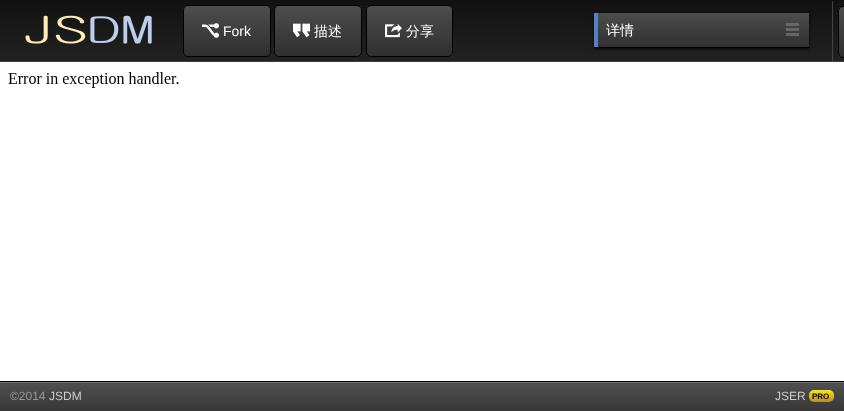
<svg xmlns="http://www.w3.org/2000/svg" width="844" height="411">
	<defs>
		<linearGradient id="g1" gradientUnits="userSpaceOnUse" x1="490" y1="0" x2="490" y2="61"><stop offset="0" stop-color="#111111" /><stop offset="1" stop-color="#222222" /></linearGradient>
		<clipPath id="clip1"><rect x="183" y="5" width="88" height="52" rx="5" /></clipPath>
		<linearGradient id="g2" gradientUnits="userSpaceOnUse" x1="227" y1="6" x2="227" y2="56"><stop offset="0" stop-color="#4D4D4D" /><stop offset="1" stop-color="#2F2F2F" /></linearGradient>
		<clipPath id="clip2"><rect x="274" y="5" width="88" height="52" rx="5" /></clipPath>
		<linearGradient id="g3" gradientUnits="userSpaceOnUse" x1="318" y1="6" x2="318" y2="56"><stop offset="0" stop-color="#4D4D4D" /><stop offset="1" stop-color="#2F2F2F" /></linearGradient>
		<clipPath id="clip3"><rect x="366" y="5" width="87" height="52" rx="5" /></clipPath>
		<linearGradient id="g4" gradientUnits="userSpaceOnUse" x1="410" y1="6" x2="410" y2="56"><stop offset="0" stop-color="#4D4D4D" /><stop offset="1" stop-color="#2F2F2F" /></linearGradient>
		<linearGradient id="g5" gradientUnits="userSpaceOnUse" x1="704" y1="13" x2="704" y2="48"><stop offset="0" stop-color="#4D4D4D" /><stop offset="1" stop-color="#2F2F2F" /></linearGradient>
		<clipPath id="clip4"><rect x="838" y="6" width="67" height="52" rx="5" /></clipPath>
		<linearGradient id="g6" gradientUnits="userSpaceOnUse" x1="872" y1="7" x2="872" y2="57"><stop offset="0" stop-color="#4D4D4D" /><stop offset="1" stop-color="#2F2F2F" /></linearGradient>
		<linearGradient id="g7" gradientUnits="userSpaceOnUse" x1="422" y1="382" x2="422" y2="411"><stop offset="0" stop-color="#505050" /><stop offset="1" stop-color="#383838" /></linearGradient>
		<linearGradient id="g8" gradientUnits="userSpaceOnUse" x1="822" y1="390" x2="822" y2="402"><stop offset="0" stop-color="#F7EC13" /><stop offset="1" stop-color="#B8892D" /></linearGradient>
	</defs>
	<rect width="100%" height="100%" fill="#FFFFFF" />
	<rect x="0" y="0" width="844" height="61" fill="url(#g1)" />
	<rect x="0" y="61" width="844" height="1" fill="#3D3D3D" />
	<image x="25" y="15" width="127" height="29" href="assets/img1.png" />
	<g clip-path="url(#clip1)">
		<rect x="183" y="6" width="88" height="50" fill="url(#g2)" />
	</g>
	<rect x="183.5" y="5.5" width="87" height="51" rx="4.5" fill="none" stroke="#000000" />
	<image x="202" y="23" width="17" height="15" href="assets/img2.png" />
	<text x="223" y="36" font-family="Liberation Sans" font-size="14" fill="#FFFFFF">Fork</text>
	<g clip-path="url(#clip2)">
		<rect x="274" y="6" width="88" height="50" fill="url(#g3)" />
	</g>
	<rect x="274.5" y="5.5" width="87" height="51" rx="4.5" fill="none" stroke="#000000" />
	<image x="293" y="23" width="17" height="15" href="assets/img3.png" />
	<text x="314" y="36" font-family="WenQuanYi Zen Hei" font-size="14" font-weight="500" fill="#FFFFFF">描述</text>
	<g clip-path="url(#clip3)">
		<rect x="366" y="6" width="87" height="50" fill="url(#g4)" />
	</g>
	<rect x="366.5" y="5.5" width="86" height="51" rx="4.5" fill="none" stroke="#000000" />
	<image x="385" y="24" width="17" height="14" href="assets/img4.png" />
	<text x="406" y="36" font-family="WenQuanYi Zen Hei" font-size="14" font-weight="500" fill="#FFFFFF">分享</text>
	<rect x="594" y="14" width="215" height="35" fill="#000000" fill-opacity="0.75" filter="blur(1.5px)" />
	<rect x="598" y="13" width="211" height="34" fill="url(#g5)" />
	<rect x="594" y="13" width="4" height="35" fill="#5182C4" />
	<text x="606" y="35" font-family="WenQuanYi Zen Hei" font-size="14" font-weight="500" fill="#FFFFFF">详情</text>
	<rect x="594" y="47" width="215" height="1" fill="#000000" />
	<rect x="786" y="23" width="13" height="3" fill="#666666" />
	<rect x="786" y="28" width="13" height="3" fill="#666666" />
	<rect x="786" y="33" width="13" height="3" fill="#666666" />
	<rect x="832" y="1" width="1" height="61" fill="#444444" />
	<g clip-path="url(#clip4)">
		<rect x="838" y="7" width="6" height="50" fill="url(#g6)" />
	</g>
	<rect x="838.5" y="6.5" width="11" height="51" rx="4.5" fill="none" stroke="#000000" />
	<image x="8" y="72" width="171" height="16" href="assets/img5.png" />
	<rect x="0" y="383" width="844" height="28" fill="url(#g7)" />
	<rect x="0" y="382" width="844" height="1" fill="#6E6E6E" />
	<rect x="0" y="381" width="844" height="1" fill="#000000" />
	<text x="10" y="400" font-family="Liberation Sans" font-size="12" fill="#999999">©2014</text>
	<g font-family="Liberation Sans" font-size="12" fill="#CCCCCC">
		<text x="49" y="400">JSDM</text>
		<text x="775" y="400">JSER</text>
	</g>
	<rect x="809" y="390" width="25" height="12" rx="5" fill="url(#g8)" />
	<text x="812" y="399" font-family="Liberation Sans" font-size="8" font-weight="700" fill="#000000">PRO</text>
</svg>
